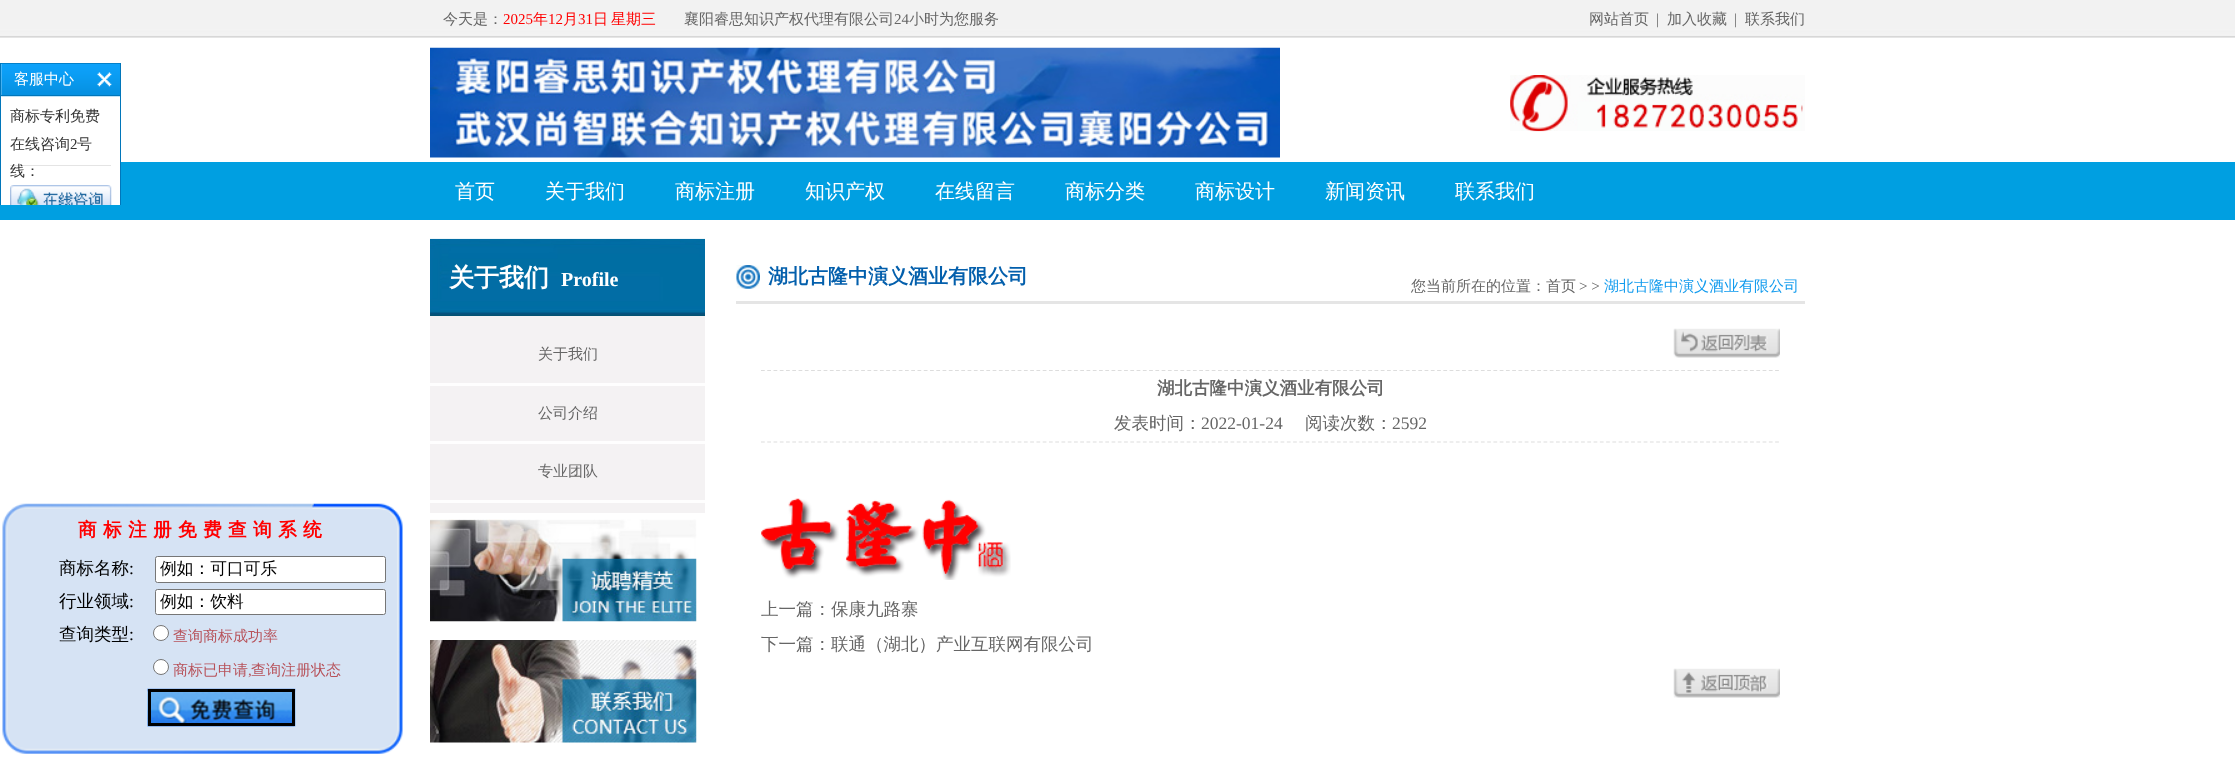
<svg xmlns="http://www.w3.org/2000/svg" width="2235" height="766">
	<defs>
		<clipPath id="clip1"><rect x="0" y="63" width="121" height="142" /></clipPath>
	</defs>
	<rect width="100%" height="100%" fill="#FFFFFF" />
	<rect x="0" y="162" width="2235" height="58" fill="#009FE1" />
	<rect x="1" y="162" width="119" height="43" fill="#FFFFFF" />
	<g clip-path="url(#clip1)">
		<rect x="0.5" y="63.5" width="120" height="164" fill="none" stroke="#0176BA" />
	</g>
	<image x="1" y="63" width="119" height="34" href="assets/img1.png" />
	<rect x="1" y="95" width="119" height="1" fill="#0176BA" />
	<text x="14" y="84" font-family="WenQuanYi Zen Hei" font-size="15" font-weight="500" fill="#FFFFFF">客服中心</text>
	<image x="97" y="72" width="15" height="15" href="assets/img2.png" />
	<rect x="10" y="165" width="101" height="1" fill="#E4E4E4" />
	<g font-family="WenQuanYi Zen Hei" font-size="15" font-weight="500" fill="#333333">
		<text x="10" y="121">商标专利免费</text>
		<text x="10" y="149">在线咨询</text>
	</g>
	<text x="70" y="149" font-family="Liberation Serif" font-size="15" fill="#333333">2</text>
	<g font-family="WenQuanYi Zen Hei" font-size="15" font-weight="500" fill="#333333">
		<text x="77" y="149">号</text>
		<text x="10" y="176">线：</text>
	</g>
	<image x="10" y="185" width="102" height="20" href="assets/img3.png" />
	<image x="0" y="0" width="2235" height="38" href="assets/img4.png" />
	<text x="443" y="24" font-family="WenQuanYi Zen Hei" font-size="15" font-weight="500" fill="#666666">今天是：</text>
	<text x="503" y="24" font-family="Liberation Serif" font-size="15" fill="#FF0000">2025</text>
	<text x="533" y="24" font-family="WenQuanYi Zen Hei" font-size="15" font-weight="500" fill="#FF0000">年</text>
	<text x="548" y="24" font-family="Liberation Serif" font-size="15" fill="#FF0000">12</text>
	<text x="563" y="24" font-family="WenQuanYi Zen Hei" font-size="15" font-weight="500" fill="#FF0000">月</text>
	<text x="578" y="24" font-family="Liberation Serif" font-size="15" fill="#FF0000">31</text>
	<g font-family="WenQuanYi Zen Hei" font-size="15" font-weight="500" fill="#FF0000">
		<text x="593" y="24">日</text>
		<text x="611" y="24">星期三</text>
	</g>
	<text x="684" y="24" font-family="WenQuanYi Zen Hei" font-size="15" font-weight="500" fill="#666666">襄阳睿思知识产权代理有限公司</text>
	<text x="894" y="24" font-family="Liberation Serif" font-size="15" fill="#666666">24</text>
	<g font-family="WenQuanYi Zen Hei" font-size="15" font-weight="500" fill="#666666">
		<text x="909" y="24">小时为您服务</text>
		<text x="1589" y="24">网站首页</text>
	</g>
	<text x="1656" y="24" font-family="Liberation Serif" font-size="15" fill="#666666">|</text>
	<text x="1667" y="24" font-family="WenQuanYi Zen Hei" font-size="15" font-weight="500" fill="#666666">加入收藏</text>
	<text x="1734" y="24" font-family="Liberation Serif" font-size="15" fill="#666666">|</text>
	<text x="1745" y="24" font-family="WenQuanYi Zen Hei" font-size="15" font-weight="500" fill="#666666">联系我们</text>
	<image x="430" y="47" width="850" height="111" href="assets/img5.png" />
	<image x="1510" y="75" width="295" height="57" href="assets/img6.png" />
	<g font-family="WenQuanYi Zen Hei" font-size="20" font-weight="500" fill="#FFFFFF">
		<text x="455" y="198">首页</text>
		<text x="545" y="198">关于我们</text>
		<text x="675" y="198">商标注册</text>
		<text x="805" y="198">知识产权</text>
		<text x="935" y="198">在线留言</text>
		<text x="1065" y="198">商标分类</text>
		<text x="1195" y="198">商标设计</text>
		<text x="1325" y="198">新闻资讯</text>
		<text x="1455" y="198">联系我们</text>
	</g>
	<image x="2" y="503" width="401" height="251" href="assets/img7.png" />
	<text x="78" y="536" font-family="WenQuanYi Zen Hei" font-size="18.75" font-weight="700" letter-spacing="6.25" fill="#FF0000">商标注册免费查询系统</text>
	<text x="59" y="574" font-family="WenQuanYi Zen Hei" font-size="17.5" font-weight="500" fill="#000000">商标名称</text>
	<text x="129" y="574" font-family="Liberation Serif" font-size="17.5" fill="#000000">:</text>
	<rect x="155.5" y="556.5" width="230" height="26" rx="2" fill="#FFFFFF" stroke="#767676" />
	<text x="160" y="574" font-family="WenQuanYi Zen Hei" font-size="16.75" font-weight="500" fill="#000000">例如：可口可乐</text>
	<text x="59" y="607" font-family="WenQuanYi Zen Hei" font-size="17.5" font-weight="500" fill="#000000">行业领域</text>
	<text x="129" y="607" font-family="Liberation Serif" font-size="17.5" fill="#000000">:</text>
	<rect x="155.5" y="589.5" width="230" height="25" rx="2" fill="#FFFFFF" stroke="#767676" />
	<text x="160" y="607" font-family="WenQuanYi Zen Hei" font-size="16.75" font-weight="500" fill="#000000">例如：饮料</text>
	<text x="59" y="640" font-family="WenQuanYi Zen Hei" font-size="17.5" font-weight="500" fill="#000000">查询类型</text>
	<text x="129" y="640" font-family="Liberation Serif" font-size="17.5" fill="#000000">:</text>
	<circle cx="161" cy="633" r="7.5" fill="#FFFFFF" stroke="#767676" />
	<text x="173" y="641" font-family="WenQuanYi Zen Hei" font-size="15" font-weight="500" fill="#B7525A">查询商标成功率</text>
	<circle cx="161" cy="667" r="7.5" fill="#FFFFFF" stroke="#767676" />
	<text x="173" y="675" font-family="WenQuanYi Zen Hei" font-size="15" font-weight="500" fill="#B7525A">商标已申请</text>
	<text x="248" y="675" font-family="Liberation Serif" font-size="15" fill="#B7525A">,</text>
	<text x="251" y="675" font-family="WenQuanYi Zen Hei" font-size="15" font-weight="500" fill="#B7525A">查询注册状态</text>
	<image x="147" y="688" width="149" height="39" href="assets/img8.png" />
	<rect x="149.5" y="690.5" width="144" height="34" fill="none" stroke="#000000" stroke-width="3" />
	<image x="430" y="238" width="275" height="78" href="assets/img9.png" />
	<text x="449" y="286" font-family="WenQuanYi Zen Hei" font-size="25" font-weight="700" fill="#FFFFFF">关于我们</text>
	<text x="561" y="286" font-family="Liberation Serif" font-size="20" font-weight="700" fill="#FFFFFF">Profile</text>
	<rect x="430" y="316" width="275" height="197" fill="#F4F2F3" />
	<rect x="430" y="383" width="275" height="3" fill="#FEFEFE" />
	<text x="538" y="359" font-family="WenQuanYi Zen Hei" font-size="15" font-weight="500" fill="#666666">关于我们</text>
	<rect x="430" y="441" width="275" height="3" fill="#FEFEFE" />
	<text x="538" y="418" font-family="WenQuanYi Zen Hei" font-size="15" font-weight="500" fill="#666666">公司介绍</text>
	<rect x="430" y="500" width="275" height="3" fill="#FEFEFE" />
	<text x="538" y="476" font-family="WenQuanYi Zen Hei" font-size="15" font-weight="500" fill="#666666">专业团队</text>
	<image x="430" y="519" width="267" height="103" href="assets/img10.png" />
	<image x="430" y="640" width="267" height="103" href="assets/img11.png" />
	<rect x="736" y="301" width="1069" height="3" fill="#E5E5E5" />
	<image x="736" y="265" width="24" height="24" href="assets/img12.png" />
	<text x="768" y="283" font-family="WenQuanYi Zen Hei" font-size="20" font-weight="700" fill="#035FAC">湖北古隆中演义酒业有限公司</text>
	<text x="1411" y="291" font-family="WenQuanYi Zen Hei" font-size="15" font-weight="500" fill="#666666">您当前所在的位置：首页</text>
	<text x="1579" y="291" font-family="Liberation Serif" font-size="15" fill="#666666">&gt; &gt;</text>
	<text x="1604" y="291" font-family="WenQuanYi Zen Hei" font-size="15" font-weight="500" fill="#119BEE">湖北古隆中演义酒业有限公司</text>
	<image x="1673" y="328" width="107" height="30" href="assets/img13.png" />
	<path d="M761 370.5H1780" fill="none" stroke="#DDDDDD" stroke-width="1.2" stroke-dasharray="3.75 2.51" />
	<text x="1157" y="394" font-family="WenQuanYi Zen Hei" font-size="17.5" font-weight="700" fill="#666666">湖北古隆中演义酒业有限公司</text>
	<path d="M761 442H1780" fill="none" stroke="#DDDDDD" stroke-width="1.2" stroke-dasharray="3.75 2.51" />
	<text x="1114" y="429" font-family="WenQuanYi Zen Hei" font-size="17.5" font-weight="500" fill="#666666">发表时间：</text>
	<text x="1201" y="429" font-family="Liberation Serif" font-size="17.5" fill="#666666">2022-01-24</text>
	<text x="1305" y="429" font-family="WenQuanYi Zen Hei" font-size="17.5" font-weight="500" fill="#666666">阅读次数：</text>
	<text x="1392" y="429" font-family="Liberation Serif" font-size="17.5" fill="#666666">2592</text>
	<image x="761" y="498" width="250" height="82" href="assets/img14.png" />
	<g font-family="WenQuanYi Zen Hei" font-size="17.5" font-weight="500" fill="#666666">
		<text x="761" y="615">上一篇：保康九路寨</text>
		<text x="761" y="650">下一篇：联通（湖北）产业互联网有限公司</text>
	</g>
	<image x="1673" y="668" width="107" height="30" href="assets/img15.png" />
</svg>
